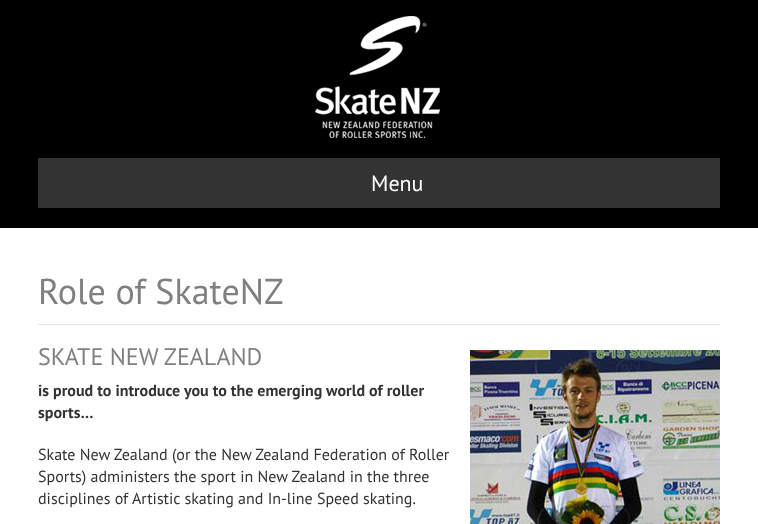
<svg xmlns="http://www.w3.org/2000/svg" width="758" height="524">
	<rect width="100%" height="100%" fill="#FFFFFF" />
	<rect x="0" y="0" width="758" height="228" fill="#000000" />
	<image x="315" y="16" width="125" height="122" href="assets/img1.png" />
	<rect x="38" y="158" width="682" height="50" fill="#333333" />
	<text x="371" y="191" font-family="PT Sans" font-size="22" fill="#FFFFFF">Menu</text>
	<rect x="38" y="324" width="682" height="1" fill="#E5E5E5" />
	<text x="38" y="304" font-family="PT Sans" font-size="36" fill="#808080">Role of SkateNZ</text>
	<text x="38" y="365" font-family="PT Sans" font-size="24" fill="#808080">SKATE NEW ZEALAND</text>
	<image x="470" y="350" width="250" height="174" href="assets/img2.png" />
	<g font-family="PT Sans" font-size="16" font-weight="700" fill="#333333">
		<text x="38" y="396">is proud to introduce you to the emerging world of roller</text>
		<text x="38" y="418">sports…</text>
	</g>
	<g font-family="PT Sans" font-size="16" fill="#333333">
		<text x="38" y="460">Skate New Zealand (or the New Zealand Federation of Roller</text>
		<text x="38" y="482">Sports) administers the sport in New Zealand in the three</text>
		<text x="38" y="504">disciplines of Artistic skating and In-line Speed skating.</text>
	</g>
</svg>
